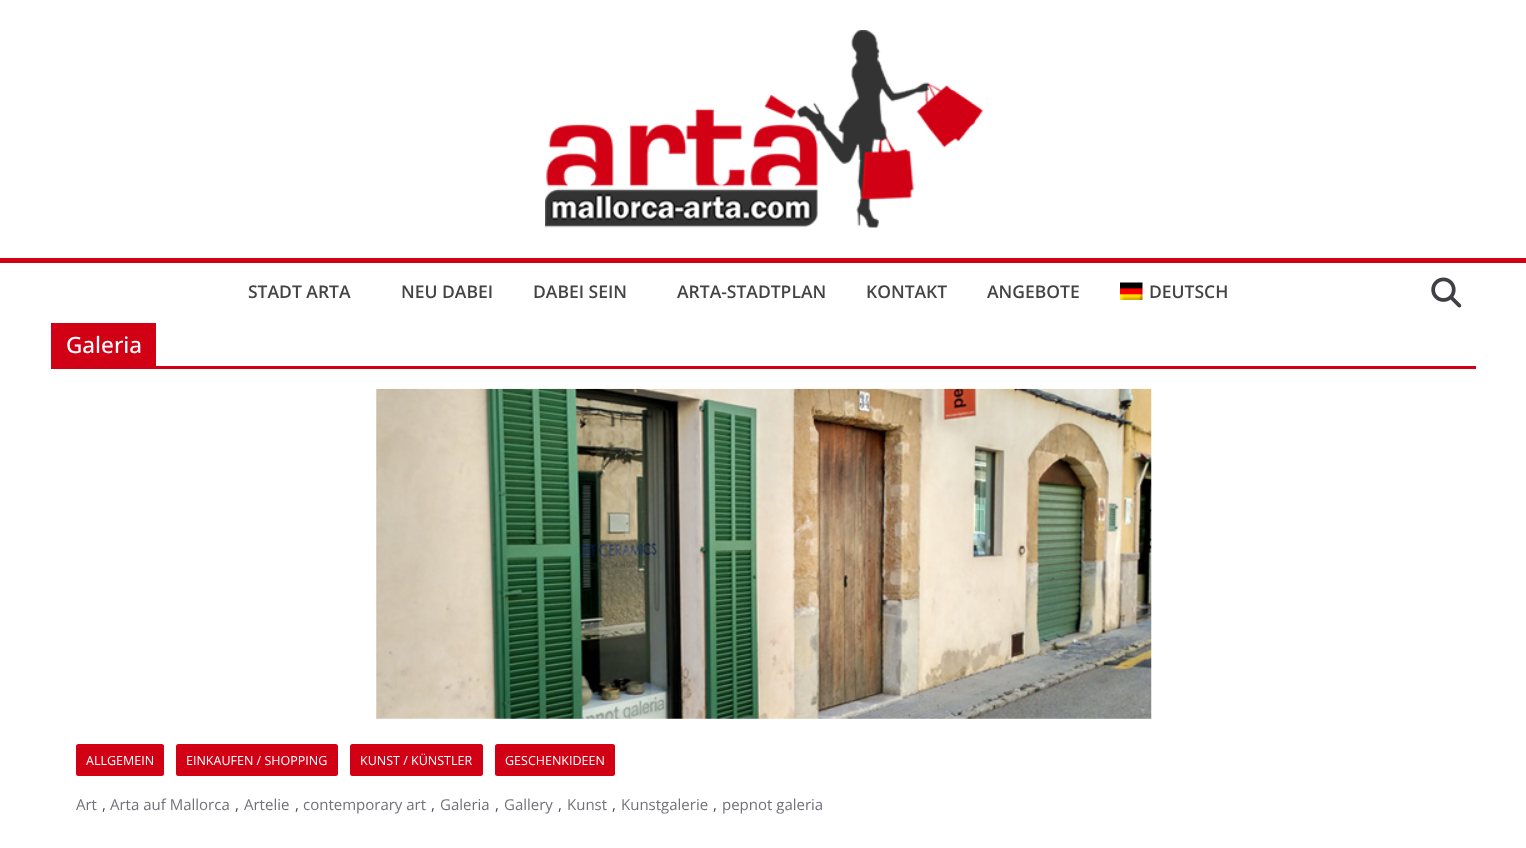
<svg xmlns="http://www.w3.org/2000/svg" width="1526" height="848">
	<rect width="100%" height="100%" fill="#FFFFFF" />
	<image x="545" y="30" width="438" height="198" href="assets/img1.png" />
	<rect x="0" y="258" width="1526" height="5" fill="#D20015" />
	<g font-family="Open Sans" font-size="17.5" font-weight="600" fill="#444444">
		<text x="248" y="298">STADT ARTA</text>
		<text x="401" y="298">NEU DABEI</text>
		<text x="533" y="298">DABEI SEIN</text>
		<text x="677" y="298">ARTA-STADTPLAN</text>
		<text x="866" y="298">KONTAKT</text>
		<text x="987" y="298">ANGEBOTE</text>
	</g>
	<image x="1120" y="282" width="23" height="18" href="assets/img2.png" />
	<text x="1149" y="298" font-family="Open Sans" font-size="17.5" font-weight="600" fill="#444444">DEUTSCH</text>
	<image x="1431" y="277" width="31" height="31" href="assets/img3.png" />
	<rect x="51" y="366" width="1425" height="3" fill="#D20015" />
	<rect x="51" y="323" width="105" height="43" fill="#D20015" />
	<text x="66" y="353" font-family="Open Sans" font-size="22.5" font-weight="500" fill="#FFFFFF">Galeria</text>
	<image x="376" y="388" width="776" height="331" href="assets/img4.png" />
	<rect x="76" y="744" width="88" height="32" rx="2.5" fill="#D20015" />
	<text x="86" y="765" font-family="Open Sans" font-size="12.5" fill="#FFFFFF">ALLGEMEIN</text>
	<rect x="176" y="744" width="162" height="32" rx="2.5" fill="#D20015" />
	<text x="186" y="765" font-family="Open Sans" font-size="12.5" fill="#FFFFFF">EINKAUFEN / SHOPPING</text>
	<rect x="350" y="744" width="133" height="32" rx="2.5" fill="#D20015" />
	<text x="360" y="765" font-family="Open Sans" font-size="12.5" fill="#FFFFFF">KUNST / KÜNSTLER</text>
	<rect x="495" y="744" width="120" height="32" rx="2.5" fill="#D20015" />
	<text x="505" y="765" font-family="Open Sans" font-size="12.5" fill="#FFFFFF">GESCHENKIDEEN</text>
	<text x="76" y="810" font-family="Open Sans" font-size="15" fill="#71717A">Art</text>
	<text x="102" y="810" font-family="Open Sans" font-size="15" fill="#444444">,</text>
	<text x="110" y="810" font-family="Open Sans" font-size="15" fill="#71717A">Arta auf Mallorca</text>
	<text x="235" y="810" font-family="Open Sans" font-size="15" fill="#444444">,</text>
	<text x="244" y="810" font-family="Open Sans" font-size="15" fill="#71717A">Artelie</text>
	<text x="295" y="810" font-family="Open Sans" font-size="15" fill="#444444">,</text>
	<text x="303" y="810" font-family="Open Sans" font-size="15" fill="#71717A">contemporary art</text>
	<text x="431" y="810" font-family="Open Sans" font-size="15" fill="#444444">,</text>
	<text x="440" y="810" font-family="Open Sans" font-size="15" fill="#71717A">Galeria</text>
	<text x="495" y="810" font-family="Open Sans" font-size="15" fill="#444444">,</text>
	<text x="504" y="810" font-family="Open Sans" font-size="15" fill="#71717A">Gallery</text>
	<text x="558" y="810" font-family="Open Sans" font-size="15" fill="#444444">,</text>
	<text x="567" y="810" font-family="Open Sans" font-size="15" fill="#71717A">Kunst</text>
	<text x="612" y="810" font-family="Open Sans" font-size="15" fill="#444444">,</text>
	<text x="621" y="810" font-family="Open Sans" font-size="15" fill="#71717A">Kunstgalerie</text>
	<text x="713" y="810" font-family="Open Sans" font-size="15" fill="#444444">,</text>
	<text x="722" y="810" font-family="Open Sans" font-size="15" fill="#71717A">pepnot galeria</text>
</svg>
